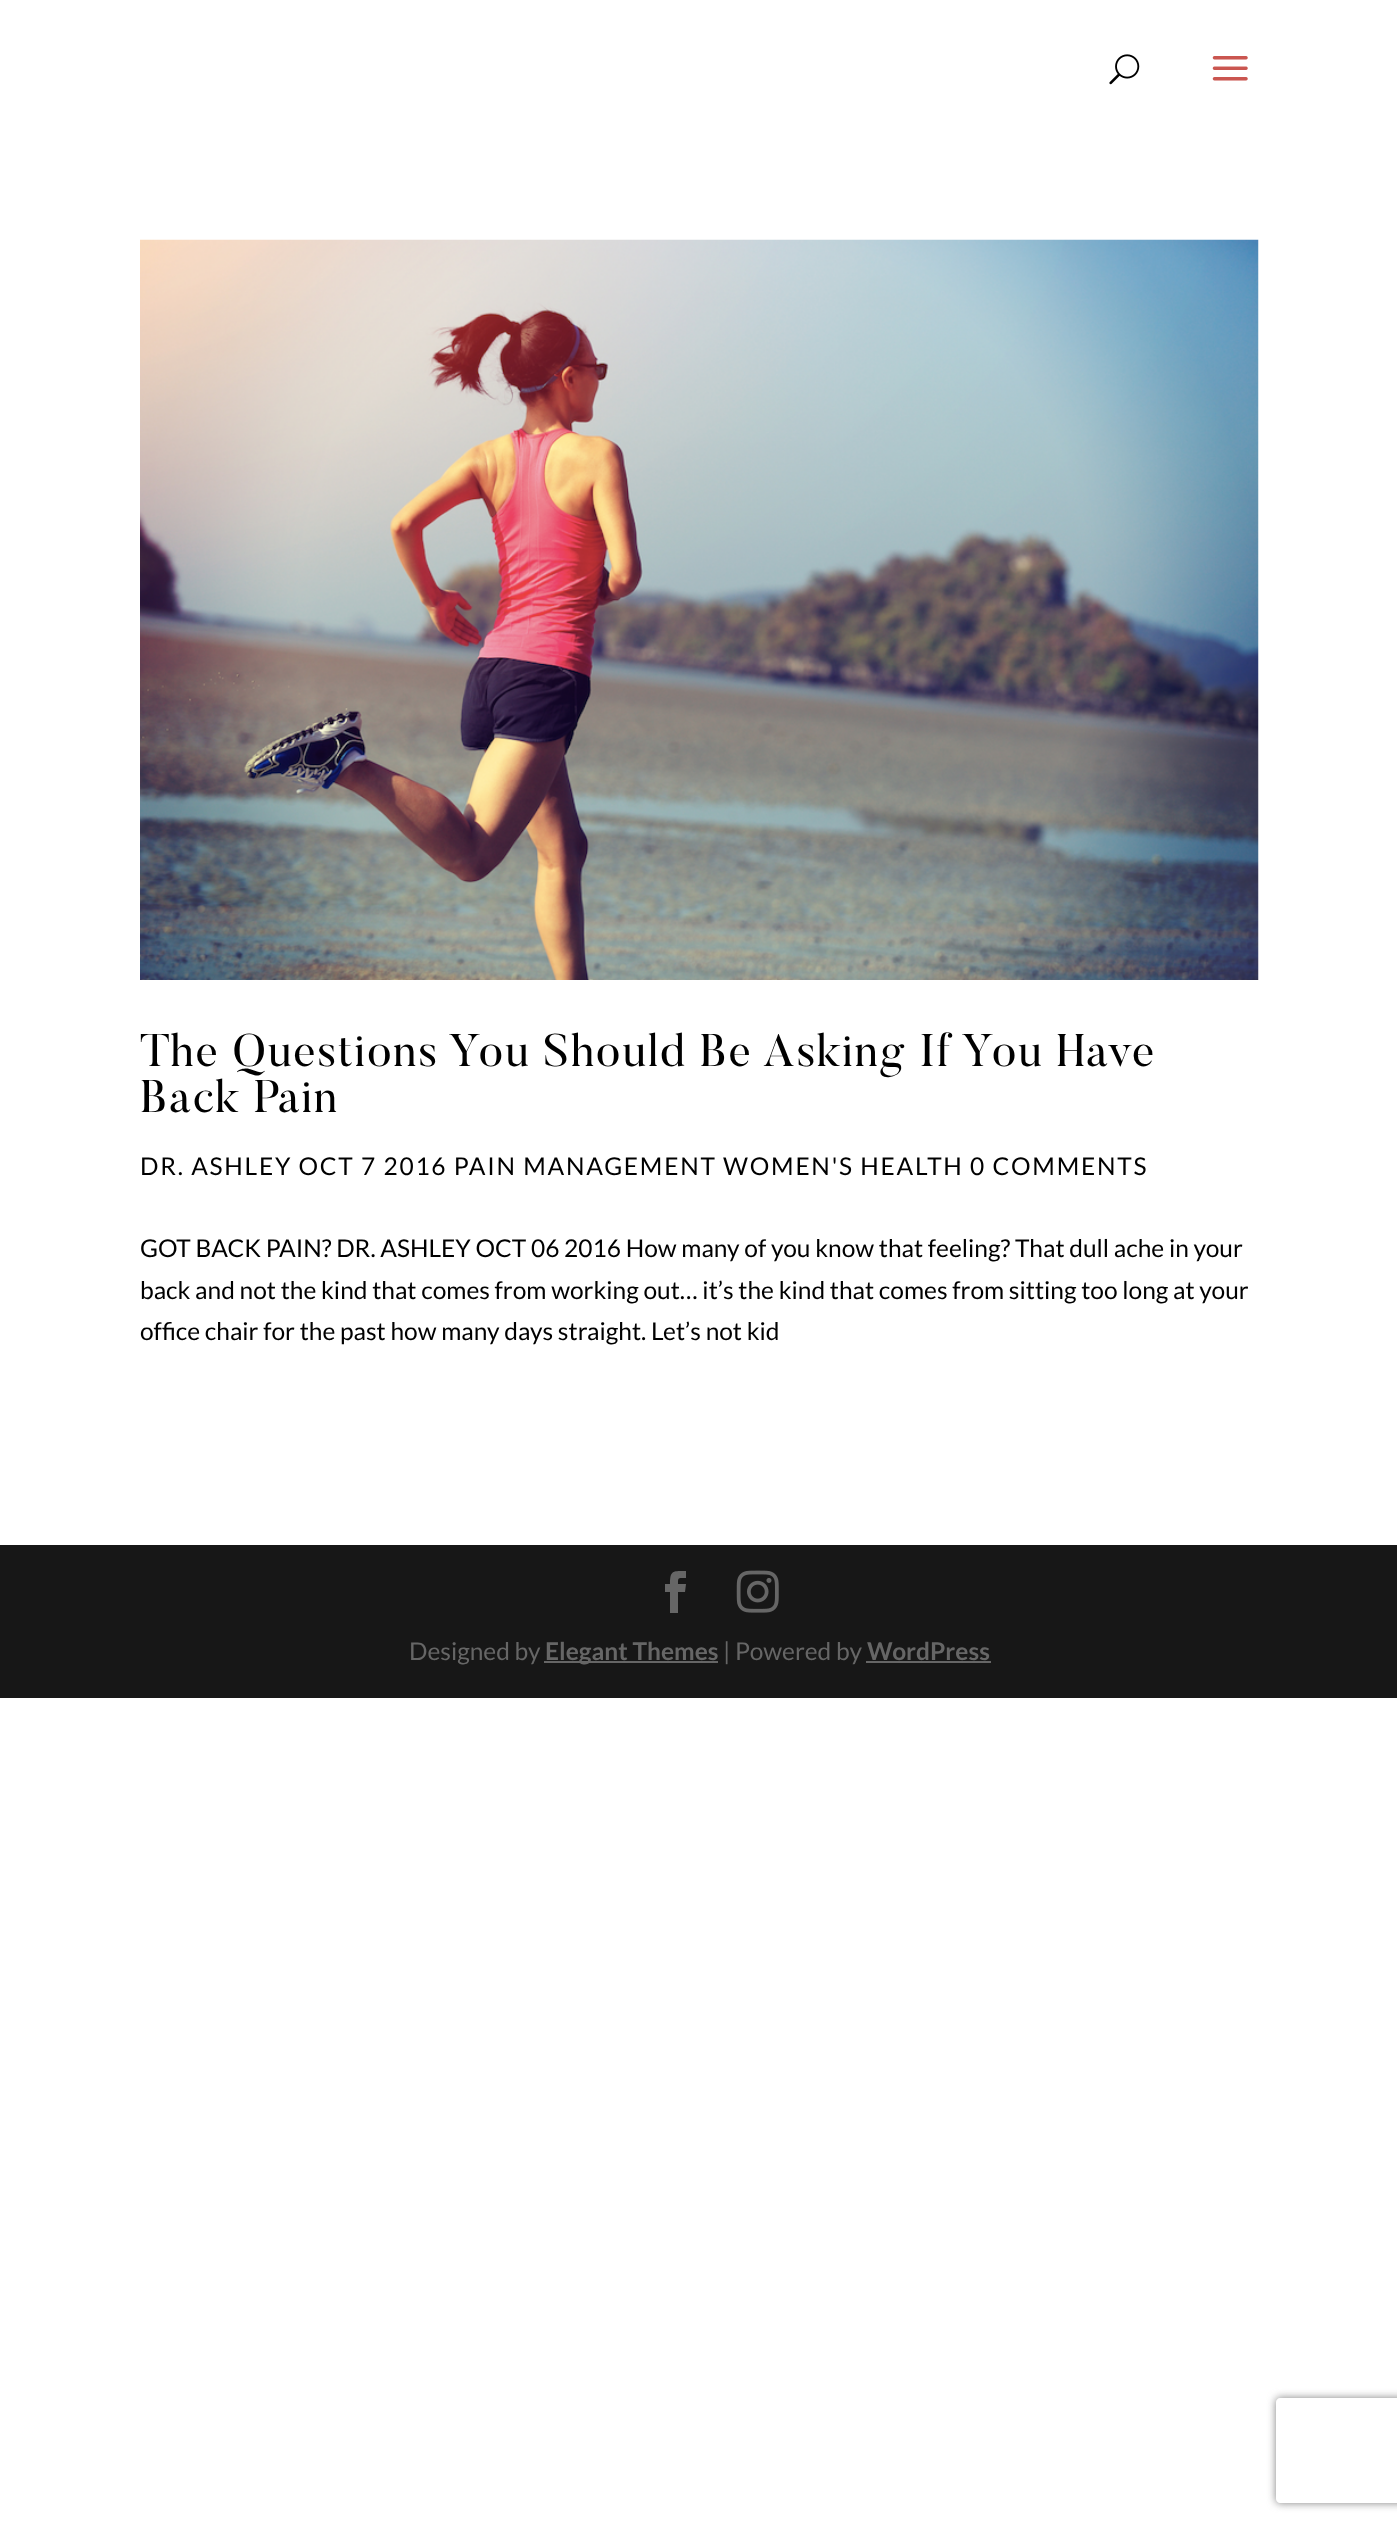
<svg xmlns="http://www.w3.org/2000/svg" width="1397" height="2527">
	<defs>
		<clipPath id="clip1"><path d="M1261 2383H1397V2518H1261ZM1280 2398H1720C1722 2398 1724 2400 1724 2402V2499C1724 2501 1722 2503 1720 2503H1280C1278 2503 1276 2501 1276 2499V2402C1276 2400 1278 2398 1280 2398Z" clip-rule="evenodd" /></clipPath>
	</defs>
	<rect width="100%" height="100%" fill="#FFFFFF" />
	<image x="1109" y="54" width="31" height="31" href="assets/img1.png" />
	<image x="1212" y="56" width="36" height="25" href="assets/img2.png" />
	<image x="140" y="239" width="1119" height="741" href="assets/img3.png" />
	<g font-family="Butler" font-size="45.5" letter-spacing="1.75" fill="#000000">
		<text x="140" y="1066">The Questions You Should Be Asking If You Have</text>
		<text x="140" y="1112">Back Pain</text>
	</g>
	<text x="140" y="1175" font-family="Lato" font-size="24.5" letter-spacing="1.75" fill="#000000">DR. ASHLEY OCT 7 2016 PAIN MANAGEMENT WOMEN'S HEALTH 0 COMMENTS</text>
	<g font-family="Lato" font-size="24.5" fill="#000000">
		<text x="140" y="1257">GOT BACK PAIN? DR. ASHLEY OCT 06 2016 How many of you know that feeling? That dull ache in your</text>
		<text x="140" y="1299">back and not the kind that comes from working out… it’s the kind that comes from sitting too long at your</text>
		<text x="140" y="1340">office chair for the past how many days straight. Let’s not kid</text>
	</g>
	<rect x="0" y="1545" width="1397" height="153" fill="#171717" />
	<path d="M670 1613H678V1592H685L686 1584H678C678 1577 678 1578 686 1578V1571C673 1571 670 1570 670 1584H665V1592H670Z" fill="#666666" />
	<image x="736" y="1570" width="43" height="43" href="assets/img4.png" />
	<text x="409" y="1660" font-family="Lato" font-size="24.5" fill="#666666">Designed by</text>
	<rect x="544" y="1661" width="174" height="2" fill="#666666" />
	<text x="545" y="1660" font-family="Lato" font-size="24.5" font-weight="700" fill="#666666">Elegant Themes</text>
	<text x="723" y="1660" font-family="Lato" font-size="24.5" fill="#666666">| Powered by</text>
	<text x="867" y="1660" font-family="Lato" font-size="24.5" font-weight="700" fill="#666666">WordPress</text>
	<rect x="866" y="1661" width="125" height="2" fill="#666666" />
	<g clip-path="url(#clip1)">
		<rect x="1276" y="2398" width="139" height="105" rx="4" fill="#808080" filter="blur(4.5px)" />
	</g>
</svg>
